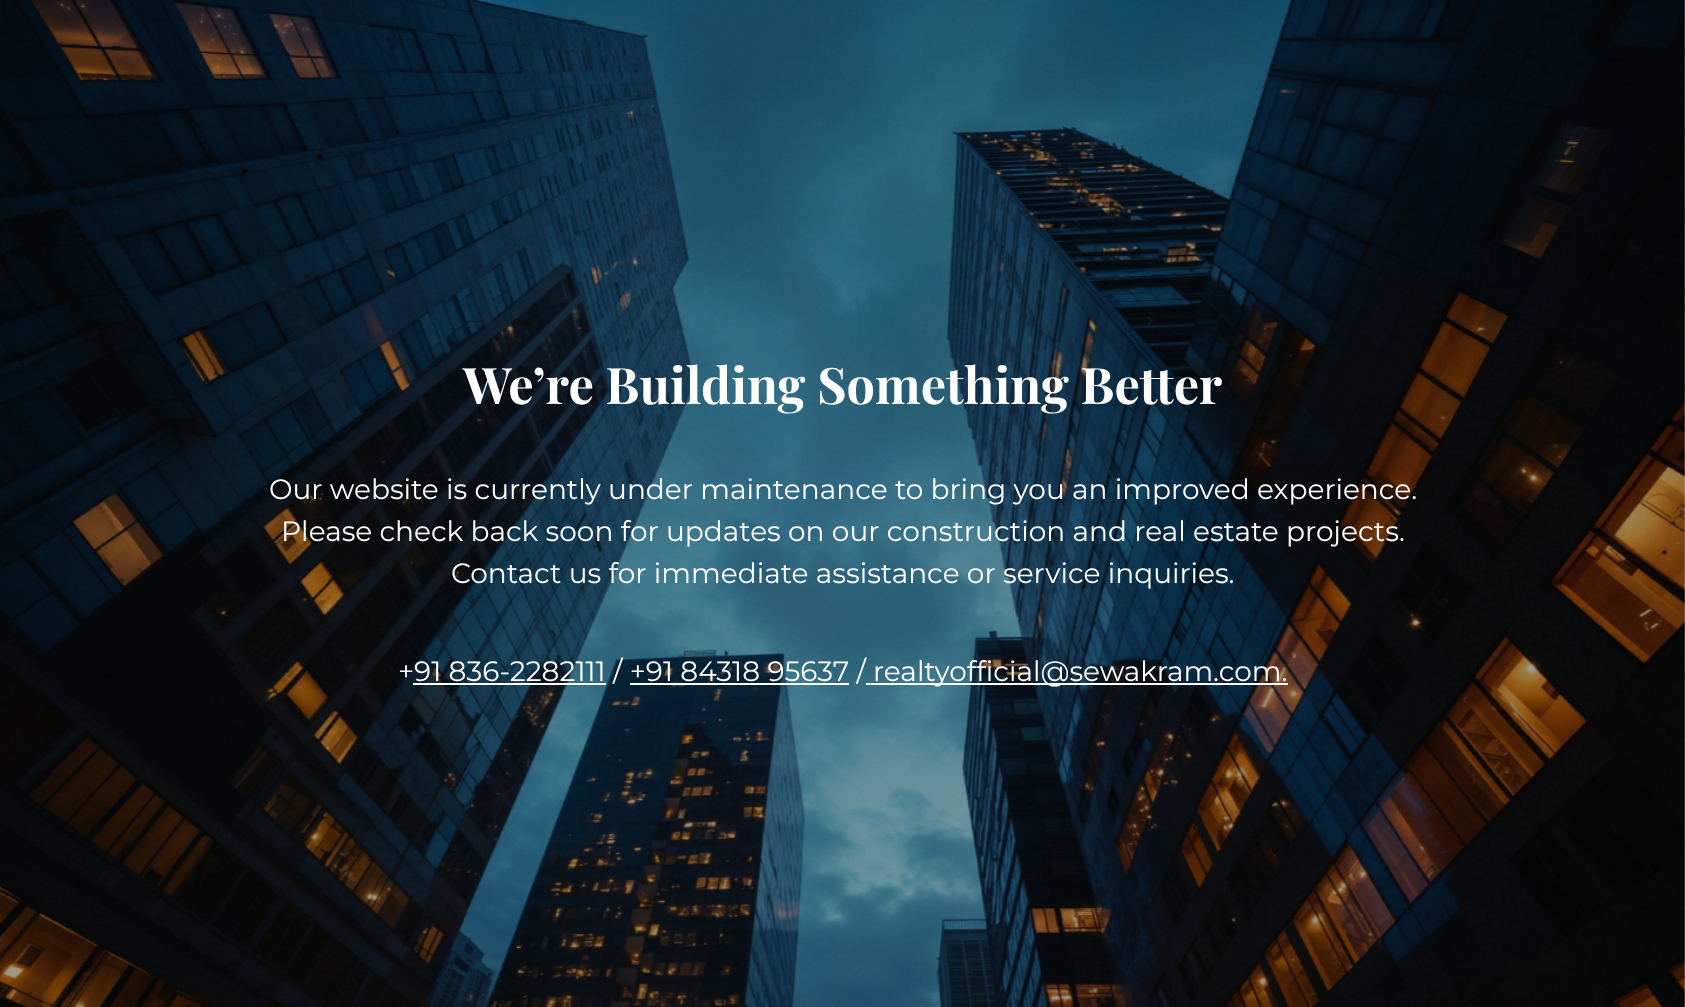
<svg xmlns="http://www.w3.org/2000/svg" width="1685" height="1007">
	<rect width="100%" height="100%" fill="#FFFFFF" />
	<image x="0" y="0" width="1685" height="1007" href="assets/img1.png" />
	<text x="463" y="404" font-family="Playfair Display" font-size="50.4" font-weight="700" fill="#FFFFFF">We’re Building Something Better</text>
	<g font-family="Montserrat" font-size="28" fill="#FFFFFF">
		<text x="269" y="499">Our website is currently under maintenance to bring you an improved experience.</text>
		<text x="281" y="541">Please check back soon for updates on our construction and real estate projects.</text>
		<text x="451" y="583">Contact us for immediate assistance or service inquiries.</text>
		<text x="398" y="681">+91 836-2282111 / +91 84318 95637 /</text>
	</g>
	<rect x="866" y="683" width="422" height="2" fill="#FFFFFF" />
	<text x="873" y="681" font-family="Montserrat" font-size="28" fill="#FFFFFF">realtyofficial@sewakram.com.</text>
	<rect x="413" y="683" width="193" height="2" fill="#FFFFFF" />
	<rect x="630" y="683" width="219" height="2" fill="#FFFFFF" />
</svg>
